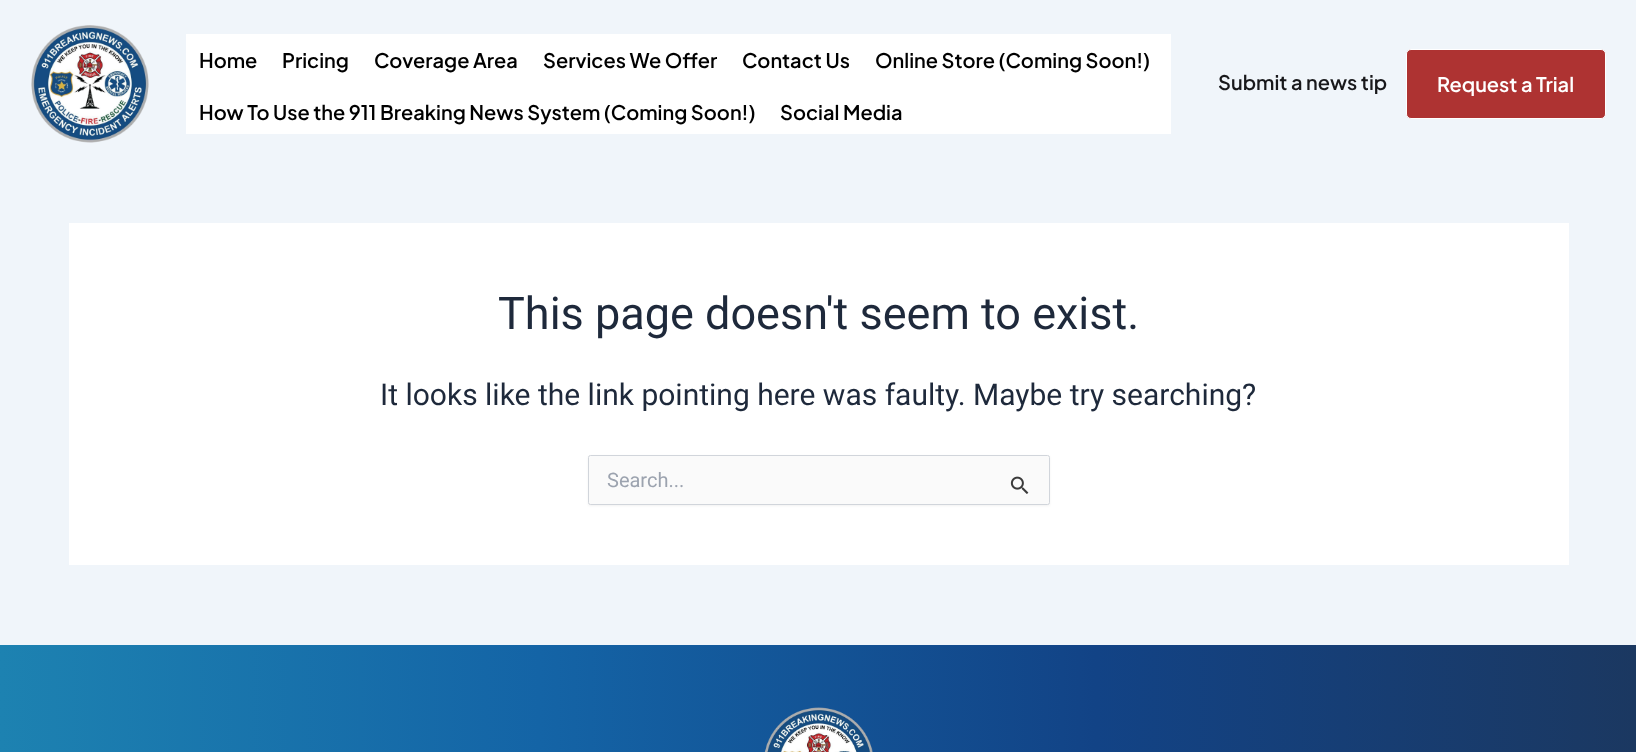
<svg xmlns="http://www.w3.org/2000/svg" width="1636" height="752">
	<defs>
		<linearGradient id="g1" gradientUnits="userSpaceOnUse" x1="0" y1="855" x2="1636" y2="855"><stop offset="0" stop-color="#1D82B1" /><stop offset="0.33" stop-color="#1464A6" /><stop offset="0.67" stop-color="#124386" /><stop offset="1" stop-color="#1B3861" /></linearGradient>
	</defs>
	<rect width="100%" height="100%" fill="#F0F5FA" />
	<image x="31" y="25" width="118" height="118" href="assets/img1.png" />
	<rect x="186" y="34" width="985" height="100" fill="#FFFFFF" />
	<g font-family="Plus Jakarta Sans" font-size="20" font-weight="600" fill="#000000">
		<text x="199" y="68">Home</text>
		<text x="282" y="68">Pricing</text>
		<text x="374" y="68">Coverage Area</text>
		<text x="543" y="68">Services We Offer</text>
		<text x="742" y="68">Contact Us</text>
		<text x="875" y="68">Online Store (Coming Soon!)</text>
		<text x="199" y="120">How To Use the 911 Breaking News System (Coming Soon!)</text>
		<text x="780" y="120">Social Media</text>
	</g>
	<text x="1218" y="90" font-family="Plus Jakarta Sans" font-size="20" font-weight="600" fill="#18181B">Submit a news tip</text>
	<rect x="1406.5" y="49.5" width="199" height="69" rx="4.5" fill="#AE3332" stroke="#FFFFFF" />
	<text x="1437" y="92" font-family="Plus Jakarta Sans" font-size="20" font-weight="600" fill="#FFFFFF">Request a Trial</text>
	<rect x="69" y="223" width="1500" height="342" fill="#FFFFFF" />
	<text x="498" y="329" font-family="Roboto" font-size="45" fill="#1E293B">This page doesn't seem to exist.</text>
	<text x="380" y="405" font-family="Roboto" font-size="30" fill="#1E293B">It looks like the link pointing here was faulty. Maybe try searching?</text>
	<rect x="588" y="456" width="462" height="50" rx="2.5" fill="#000000" fill-opacity="0.05" filter="blur(1px)" />
	<rect x="588.5" y="455.5" width="461" height="49" rx="2" fill="#FAFAFA" stroke="#D1D5DB" />
	<text x="607" y="487" font-family="Roboto" font-size="20" fill="#9CA3AF">Search...</text>
	<image x="1010" y="476" width="19" height="18" href="assets/img2.png" />
	<rect x="0" y="645" width="1636" height="107" fill="url(#g1)" />
	<image x="764" y="707" width="109" height="45" href="assets/img3.png" />
</svg>
